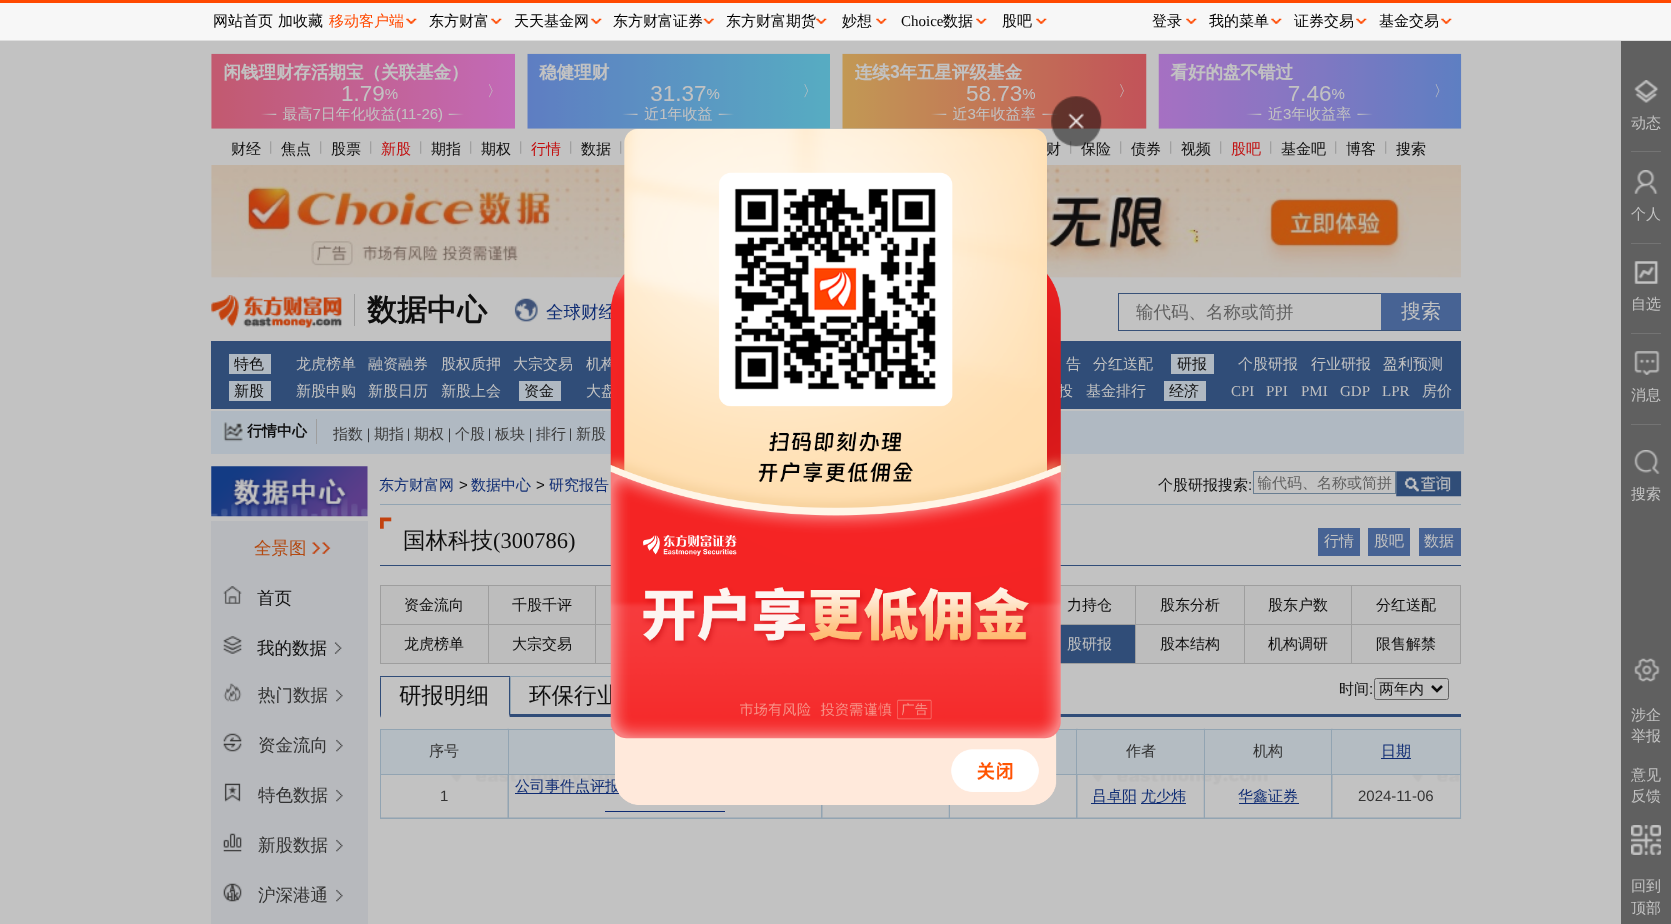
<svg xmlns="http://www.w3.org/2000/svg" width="1671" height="924">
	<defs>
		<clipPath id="clip1"><rect x="1136" y="301" width="245" height="23" /></clipPath>
		<clipPath id="clip2"><rect x="330" y="424" width="649" height="17" /></clipPath>
		<clipPath id="clip3"><rect x="1258" y="473" width="137" height="20" /></clipPath>
	</defs>
	<rect width="100%" height="100%" fill="#C2C2C2" />
	<rect x="0" y="3" width="1671" height="37" fill="#F7F7F7" />
	<rect x="0" y="0" width="1671" height="3" fill="#FF4901" />
	<rect x="0" y="40" width="1671" height="1" fill="#DFDFDF" />
	<g font-family="WenQuanYi Zen Hei" font-size="15" font-weight="500" fill="#000000">
		<text x="213" y="26">网站首页</text>
		<text x="278" y="26">加收藏</text>
	</g>
	<image x="406" y="18" width="11" height="6" href="assets/img1.png" />
	<text x="329" y="26" font-family="WenQuanYi Zen Hei" font-size="15" font-weight="500" fill="#FF4900">移动客户端</text>
	<image x="491" y="18" width="11" height="6" href="assets/img1.png" />
	<text x="429" y="26" font-family="WenQuanYi Zen Hei" font-size="15" font-weight="500" fill="#000000">东方财富</text>
	<image x="591" y="18" width="11" height="6" href="assets/img1.png" />
	<text x="514" y="26" font-family="WenQuanYi Zen Hei" font-size="15" font-weight="500" fill="#000000">天天基金网</text>
	<image x="703" y="18" width="11" height="6" href="assets/img2.png" />
	<text x="613" y="26" font-family="WenQuanYi Zen Hei" font-size="15" font-weight="500" fill="#000000">东方财富证券</text>
	<image x="816" y="18" width="11" height="6" href="assets/img1.png" />
	<text x="726" y="26" font-family="WenQuanYi Zen Hei" font-size="15" font-weight="500" fill="#000000">东方财富期货</text>
	<image x="876" y="18" width="11" height="6" href="assets/img1.png" />
	<text x="842" y="26" font-family="WenQuanYi Zen Hei" font-size="15" font-weight="500" fill="#000000">妙想</text>
	<image x="976" y="18" width="11" height="6" href="assets/img1.png" />
	<text x="901" y="26" font-family="Liberation Serif" font-size="15" fill="#000000">Choice</text>
	<text x="943" y="26" font-family="WenQuanYi Zen Hei" font-size="15" font-weight="500" fill="#000000">数据</text>
	<image x="1036" y="18" width="11" height="6" href="assets/img1.png" />
	<text x="1002" y="26" font-family="WenQuanYi Zen Hei" font-size="15" font-weight="500" fill="#000000">股吧</text>
	<image x="1186" y="18" width="11" height="6" href="assets/img1.png" />
	<text x="1152" y="26" font-family="WenQuanYi Zen Hei" font-size="15" font-weight="500" fill="#000000">登录</text>
	<image x="1271" y="18" width="11" height="6" href="assets/img1.png" />
	<text x="1209" y="26" font-family="WenQuanYi Zen Hei" font-size="15" font-weight="500" fill="#000000">我的菜单</text>
	<image x="1356" y="18" width="11" height="6" href="assets/img1.png" />
	<text x="1294" y="26" font-family="WenQuanYi Zen Hei" font-size="15" font-weight="500" fill="#000000">证券交易</text>
	<image x="1441" y="18" width="11" height="6" href="assets/img1.png" />
	<text x="1379" y="26" font-family="WenQuanYi Zen Hei" font-size="15" font-weight="500" fill="#000000">基金交易</text>
	<image x="211" y="53" width="1251" height="76" href="assets/img12.png" />
	<text x="581" y="154" font-family="WenQuanYi Zen Hei" font-size="15" font-weight="500" fill="#0F0F0F">数据</text>
	<image x="620" y="141" width="2" height="13" href="assets/img13.png" />
	<text x="1046" y="154" font-family="WenQuanYi Zen Hei" font-size="15" font-weight="500" fill="#0F0F0F">财</text>
	<image x="211" y="165" width="1250" height="113" href="assets/img14.png" />
	<rect x="211" y="341" width="1250" height="3" fill="#304C78" />
	<text x="546" y="318" font-family="WenQuanYi Zen Hei" font-size="17.5" font-weight="500" fill="#0F2C73">全球财经</text>
	<rect x="211" y="344" width="1250" height="65" fill="#304D78" />
	<g font-family="WenQuanYi Zen Hei" font-size="15" font-weight="500" fill="#C2C2C2">
		<text x="586" y="369">机构</text>
		<text x="1066" y="369">告</text>
		<text x="586" y="396">大盘</text>
		<text x="1058" y="396">投</text>
	</g>
	<rect x="211" y="411" width="1253" height="43" fill="#B0B9C2" />
	<rect x="380" y="504" width="1081" height="1" fill="#92A4B2" />
	<rect x="380" y="565" width="1081" height="1" fill="#304C78" />
	<rect x="381" y="586" width="1079" height="77" fill="#BDBDBD" />
	<rect x="380" y="585" width="1081" height="1" fill="#9E9E9E" />
	<rect x="1460" y="585" width="1" height="79" fill="#9E9E9E" />
	<rect x="1351" y="663" width="110" height="1" fill="#9E9E9E" />
	<rect x="1351" y="624" width="1" height="40" fill="#9E9E9E" />
	<rect x="1351" y="624" width="110" height="1" fill="#9E9E9E" />
	<rect x="1351" y="585" width="1" height="40" fill="#9E9E9E" />
	<rect x="1244" y="663" width="109" height="1" fill="#9E9E9E" />
	<rect x="1244" y="624" width="1" height="40" fill="#9E9E9E" />
	<rect x="1244" y="624" width="109" height="1" fill="#9E9E9E" />
	<rect x="1244" y="585" width="1" height="40" fill="#9E9E9E" />
	<rect x="1135" y="663" width="110" height="1" fill="#9E9E9E" />
	<rect x="1135" y="624" width="1" height="40" fill="#9E9E9E" />
	<rect x="1135" y="624" width="110" height="1" fill="#9E9E9E" />
	<rect x="1135" y="585" width="1" height="40" fill="#9E9E9E" />
	<rect x="1060" y="624" width="76" height="1" fill="#9E9E9E" />
	<rect x="595" y="663" width="16" height="1" fill="#9E9E9E" />
	<rect x="595" y="624" width="1" height="40" fill="#9E9E9E" />
	<rect x="595" y="624" width="16" height="1" fill="#9E9E9E" />
	<rect x="1060" y="625" width="75" height="38" fill="#304D78" />
	<rect x="1060" y="663" width="76" height="1" fill="#9E9E9E" />
	<rect x="380" y="714" width="1081" height="3" fill="#304C78" />
	<rect x="510" y="676" width="101" height="1" fill="#92A4B2" />
	<text x="529" y="703" font-family="WenQuanYi Zen Hei" font-size="22.5" font-weight="500" fill="#0F0F0F">环保行业</text>
	<image x="380" y="728" width="1082" height="91" href="assets/img31.png" />
	<rect x="380" y="729" width="1081" height="1" fill="#92A4B2" />
	<rect x="509" y="730" width="106" height="44" fill="#B4BCC2" />
	<rect x="1056" y="730" width="20" height="44" fill="#B4BCC2" />
	<rect x="515" y="793" width="105" height="1" fill="#0F2C73" />
	<text x="515" y="791" font-family="WenQuanYi Zen Hei" font-size="15" font-weight="500" fill="#0F2C73">公司事件点评报</text>
	<image x="610" y="128" width="457" height="677" href="assets/img4.png" />
	<image x="1070" y="141" width="2" height="13" href="assets/img13.png" />
	<text x="1081" y="154" font-family="WenQuanYi Zen Hei" font-size="15" font-weight="500" fill="#0F0F0F">保险</text>
	<image x="1051" y="96" width="51" height="51" href="assets/img3.png" />
	<rect x="1621" y="41" width="50" height="883" fill="#606060" />
	<image x="1634" y="80" width="25" height="23" href="assets/img5.png" />
	<text x="1631" y="128" font-family="WenQuanYi Zen Hei" font-size="15" font-weight="500" fill="#C2C2C2">动态</text>
	<rect x="1631" y="151" width="30" height="1" fill="#747474" />
	<image x="1634" y="170" width="24" height="24" href="assets/img6.png" />
	<text x="1631" y="219" font-family="WenQuanYi Zen Hei" font-size="15" font-weight="500" fill="#C2C2C2">个人</text>
	<rect x="1631" y="243" width="30" height="1" fill="#747474" />
	<image x="1634" y="261" width="25" height="23" href="assets/img7.png" />
	<text x="1631" y="309" font-family="WenQuanYi Zen Hei" font-size="15" font-weight="500" fill="#C2C2C2">自选</text>
	<rect x="1631" y="333" width="30" height="1" fill="#747474" />
	<image x="1634" y="351" width="26" height="24" href="assets/img8.png" />
	<text x="1631" y="400" font-family="WenQuanYi Zen Hei" font-size="15" font-weight="500" fill="#C2C2C2">消息</text>
	<rect x="1631" y="424" width="30" height="1" fill="#747474" />
	<image x="1634" y="450" width="26" height="24" href="assets/img9.png" />
	<text x="1631" y="499" font-family="WenQuanYi Zen Hei" font-size="15" font-weight="500" fill="#C2C2C2">搜索</text>
	<image x="1634" y="658" width="26" height="24" href="assets/img10.png" />
	<g font-family="WenQuanYi Zen Hei" font-size="15" font-weight="500" fill="#C2C2C2">
		<text x="1631" y="720">涉企</text>
		<text x="1631" y="741">举报</text>
		<text x="1631" y="780">意见</text>
		<text x="1631" y="801">反馈</text>
	</g>
	<image x="1631" y="825" width="30" height="30" href="assets/img11.png" />
	<g font-family="WenQuanYi Zen Hei" font-size="15" font-weight="500" fill="#C2C2C2">
		<text x="1631" y="891">回到</text>
		<text x="1631" y="913">顶部</text>
	</g>
	<text x="231" y="154" font-family="WenQuanYi Zen Hei" font-size="15" font-weight="500" fill="#0F0F0F">财经</text>
	<image x="270" y="141" width="2" height="13" href="assets/img13.png" />
	<text x="281" y="154" font-family="WenQuanYi Zen Hei" font-size="15" font-weight="500" fill="#0F0F0F">焦点</text>
	<image x="320" y="141" width="2" height="13" href="assets/img13.png" />
	<text x="331" y="154" font-family="WenQuanYi Zen Hei" font-size="15" font-weight="500" fill="#0F0F0F">股票</text>
	<image x="370" y="141" width="2" height="13" href="assets/img13.png" />
	<text x="381" y="154" font-family="WenQuanYi Zen Hei" font-size="15" font-weight="500" fill="#C20F0F">新股</text>
	<image x="420" y="141" width="2" height="13" href="assets/img13.png" />
	<text x="431" y="154" font-family="WenQuanYi Zen Hei" font-size="15" font-weight="500" fill="#0F0F0F">期指</text>
	<image x="470" y="141" width="2" height="13" href="assets/img13.png" />
	<text x="481" y="154" font-family="WenQuanYi Zen Hei" font-size="15" font-weight="500" fill="#0F0F0F">期权</text>
	<image x="520" y="141" width="2" height="13" href="assets/img13.png" />
	<text x="531" y="154" font-family="WenQuanYi Zen Hei" font-size="15" font-weight="500" fill="#C20F0F">行情</text>
	<image x="570" y="141" width="2" height="13" href="assets/img13.png" />
	<image x="1120" y="141" width="2" height="13" href="assets/img13.png" />
	<text x="1131" y="154" font-family="WenQuanYi Zen Hei" font-size="15" font-weight="500" fill="#0F0F0F">债券</text>
	<image x="1170" y="141" width="2" height="13" href="assets/img13.png" />
	<text x="1181" y="154" font-family="WenQuanYi Zen Hei" font-size="15" font-weight="500" fill="#0F0F0F">视频</text>
	<image x="1220" y="141" width="2" height="13" href="assets/img13.png" />
	<text x="1231" y="154" font-family="WenQuanYi Zen Hei" font-size="15" font-weight="500" fill="#C20F0F">股吧</text>
	<image x="1270" y="141" width="2" height="13" href="assets/img13.png" />
	<text x="1281" y="154" font-family="WenQuanYi Zen Hei" font-size="15" font-weight="500" fill="#0F0F0F">基金吧</text>
	<image x="1335" y="141" width="2" height="13" href="assets/img13.png" />
	<text x="1346" y="154" font-family="WenQuanYi Zen Hei" font-size="15" font-weight="500" fill="#0F0F0F">博客</text>
	<image x="1385" y="141" width="2" height="13" href="assets/img13.png" />
	<text x="1396" y="154" font-family="WenQuanYi Zen Hei" font-size="15" font-weight="500" fill="#0F0F0F">搜索</text>
	<image x="211" y="295" width="131" height="33" href="assets/img15.png" />
	<text x="367" y="320" font-family="WenQuanYi Zen Hei" font-size="30" font-weight="700" fill="#0F0F0F">数据中心</text>
	<rect x="354" y="294" width="1" height="32" fill="#9E9E9E" />
	<image x="514" y="298" width="24" height="24" href="assets/img16.png" />
	<rect x="1118" y="293" width="263" height="1" fill="#385178" />
	<rect x="1118" y="330" width="343" height="1" fill="#385178" />
	<rect x="1118" y="293" width="1" height="38" fill="#385178" />
	<g clip-path="url(#clip1)">
		<text x="1136" y="318" font-family="WenQuanYi Zen Hei" font-size="17.5" font-weight="500" fill="#616161">输代码、名称或简拼</text>
	</g>
	<rect x="1381" y="293" width="80" height="37" fill="#476394" />
	<text x="1401" y="318" font-family="WenQuanYi Zen Hei" font-size="20" font-weight="500" fill="#C2C2C2">搜索</text>
	<rect x="229" y="354" width="42" height="20" fill="#B0B9C2" />
	<text x="234" y="369" font-family="WenQuanYi Zen Hei" font-size="15" font-weight="500" fill="#0F0F0F">特色</text>
	<g font-family="WenQuanYi Zen Hei" font-size="15" font-weight="500" fill="#C2C2C2">
		<text x="296" y="369">龙虎榜单</text>
		<text x="368" y="369">融资融券</text>
		<text x="441" y="369">股权质押</text>
		<text x="513" y="369">大宗交易</text>
		<text x="1093" y="369">分红送配</text>
	</g>
	<rect x="1171" y="354" width="43" height="20" fill="#B0B9C2" />
	<text x="1177" y="369" font-family="WenQuanYi Zen Hei" font-size="15" font-weight="500" fill="#0F0F0F">研报</text>
	<g font-family="WenQuanYi Zen Hei" font-size="15" font-weight="500" fill="#C2C2C2">
		<text x="1238" y="369">个股研报</text>
		<text x="1311" y="369">行业研报</text>
		<text x="1383" y="369">盈利预测</text>
	</g>
	<rect x="229" y="381" width="42" height="20" fill="#B0B9C2" />
	<text x="234" y="396" font-family="WenQuanYi Zen Hei" font-size="15" font-weight="500" fill="#0F0F0F">新股</text>
	<g font-family="WenQuanYi Zen Hei" font-size="15" font-weight="500" fill="#C2C2C2">
		<text x="296" y="396">新股申购</text>
		<text x="368" y="396">新股日历</text>
		<text x="441" y="396">新股上会</text>
	</g>
	<rect x="519" y="381" width="42" height="20" fill="#B0B9C2" />
	<text x="524" y="396" font-family="WenQuanYi Zen Hei" font-size="15" font-weight="500" fill="#0F0F0F">资金</text>
	<text x="1086" y="396" font-family="WenQuanYi Zen Hei" font-size="15" font-weight="500" fill="#C2C2C2">基金排行</text>
	<rect x="1164" y="381" width="42" height="20" fill="#B0B9C2" />
	<text x="1169" y="396" font-family="WenQuanYi Zen Hei" font-size="15" font-weight="500" fill="#0F0F0F">经济</text>
	<g font-family="Liberation Serif" font-size="15" fill="#C2C2C2">
		<text x="1231" y="396">CPI</text>
		<text x="1266" y="396">PPI</text>
		<text x="1301" y="396">PMI</text>
		<text x="1340" y="396">GDP</text>
		<text x="1382" y="396">LPR</text>
	</g>
	<text x="1422" y="396" font-family="WenQuanYi Zen Hei" font-size="15" font-weight="500" fill="#C2C2C2">房价</text>
	<rect x="316" y="419" width="1" height="25" fill="#9E9E9E" />
	<image x="222" y="422" width="22" height="20" href="assets/img17.png" />
	<text x="247" y="436" font-family="WenQuanYi Zen Hei" font-size="15" font-weight="700" fill="#0F0F0F">行情中心</text>
	<text x="333" y="439" font-family="WenQuanYi Zen Hei" font-size="15" font-weight="500" fill="#3B3B3B">指数</text>
	<text x="367" y="439" font-family="Liberation Serif" font-size="15" fill="#0F0F0F">|</text>
	<text x="374" y="439" font-family="WenQuanYi Zen Hei" font-size="15" font-weight="500" fill="#3B3B3B">期指</text>
	<g clip-path="url(#clip2)">
		<text x="407" y="439" font-family="Liberation Serif" font-size="15" fill="#0F0F0F">|</text>
	</g>
	<text x="414" y="439" font-family="WenQuanYi Zen Hei" font-size="15" font-weight="500" fill="#3B3B3B">期权</text>
	<text x="448" y="439" font-family="Liberation Serif" font-size="15" fill="#0F0F0F">|</text>
	<text x="455" y="439" font-family="WenQuanYi Zen Hei" font-size="15" font-weight="500" fill="#3B3B3B">个股</text>
	<g clip-path="url(#clip2)">
		<text x="488" y="439" font-family="Liberation Serif" font-size="15" fill="#0F0F0F">|</text>
	</g>
	<text x="495" y="439" font-family="WenQuanYi Zen Hei" font-size="15" font-weight="500" fill="#3B3B3B">板块</text>
	<text x="529" y="439" font-family="Liberation Serif" font-size="15" fill="#0F0F0F">|</text>
	<text x="536" y="439" font-family="WenQuanYi Zen Hei" font-size="15" font-weight="500" fill="#3B3B3B">排行</text>
	<g clip-path="url(#clip2)">
		<text x="569" y="439" font-family="Liberation Serif" font-size="15" fill="#0F0F0F">|</text>
	</g>
	<text x="576" y="439" font-family="WenQuanYi Zen Hei" font-size="15" font-weight="500" fill="#3B3B3B">新股</text>
	<image x="211" y="466" width="157" height="51" href="assets/img18.png" />
	<rect x="211" y="521" width="157" height="150" fill="#B7B9BD" />
	<text x="254" y="554" font-family="WenQuanYi Zen Hei" font-size="17.5" font-weight="500" fill="#B34A12">全景图</text>
	<image x="312" y="542" width="19" height="12" href="assets/img19.png" />
	<image x="223" y="586" width="19" height="18" href="assets/img20.png" />
	<text x="257" y="604" font-family="WenQuanYi Zen Hei" font-size="17.5" font-weight="500" fill="#0F0F0F">首页</text>
	<image x="223" y="636" width="19" height="18" href="assets/img21.png" />
	<text x="257" y="654" font-family="WenQuanYi Zen Hei" font-size="17.5" font-weight="500" fill="#0F0F0F">我的数据</text>
	<image x="334" y="642" width="8" height="12" href="assets/img22.png" />
	<rect x="211" y="671" width="157" height="253" fill="#B7B9BD" />
	<image x="223" y="683" width="19" height="19" href="assets/img23.png" />
	<text x="258" y="701" font-family="WenQuanYi Zen Hei" font-size="17.5" font-weight="500" fill="#333333">热门数据</text>
	<image x="336" y="689" width="7" height="13" href="assets/img24.png" />
	<image x="223" y="733" width="19" height="19" href="assets/img25.png" />
	<text x="258" y="751" font-family="WenQuanYi Zen Hei" font-size="17.5" font-weight="500" fill="#333333">资金流向</text>
	<image x="336" y="739" width="7" height="13" href="assets/img24.png" />
	<image x="224" y="783" width="17" height="19" href="assets/img26.png" />
	<text x="258" y="801" font-family="WenQuanYi Zen Hei" font-size="17.5" font-weight="500" fill="#333333">特色数据</text>
	<image x="336" y="789" width="7" height="13" href="assets/img24.png" />
	<image x="223" y="833" width="19" height="19" href="assets/img27.png" />
	<text x="258" y="851" font-family="WenQuanYi Zen Hei" font-size="17.5" font-weight="500" fill="#333333">新股数据</text>
	<image x="336" y="839" width="7" height="13" href="assets/img24.png" />
	<image x="223" y="883" width="19" height="19" href="assets/img28.png" />
	<text x="258" y="901" font-family="WenQuanYi Zen Hei" font-size="17.5" font-weight="500" fill="#333333">沪深港通</text>
	<image x="336" y="889" width="7" height="13" href="assets/img24.png" />
	<text x="379" y="490" font-family="WenQuanYi Zen Hei" font-size="15" font-weight="500" fill="#0F2C73">东方财富网</text>
	<text x="459" y="490" font-family="Liberation Sans" font-size="15" fill="#0F0F0F">&gt;</text>
	<text x="471" y="490" font-family="WenQuanYi Zen Hei" font-size="15" font-weight="500" fill="#0F2C73">数据中心</text>
	<text x="536" y="490" font-family="Liberation Sans" font-size="15" fill="#0F0F0F">&gt;</text>
	<text x="549" y="490" font-family="WenQuanYi Zen Hei" font-size="15" font-weight="500" fill="#0F2C73">研究报告</text>
	<text x="1158" y="490" font-family="WenQuanYi Zen Hei" font-size="15" font-weight="500" fill="#0F0F0F">个股研报搜索</text>
	<text x="1248" y="490" font-family="Liberation Sans" font-size="15" fill="#0F0F0F">:</text>
	<rect x="1253.5" y="471.5" width="142" height="22" fill="none" stroke="#687D91" />
	<g clip-path="url(#clip3)">
		<text x="1257" y="488" font-family="WenQuanYi Zen Hei" font-size="15" font-weight="500" fill="#616161">输代码、名称或简拼</text>
	</g>
	<image x="1396" y="471" width="66" height="26" href="assets/img29.png" />
	<image x="380" y="517" width="12" height="12" href="assets/img30.png" />
	<text x="403" y="548" font-family="WenQuanYi Zen Hei" font-size="22.5" font-weight="500" fill="#0F0F0F">国林科技</text>
	<text x="493" y="548" font-family="Liberation Serif" font-size="22.5" fill="#0F0F0F">(300786)</text>
	<rect x="1318" y="528" width="42" height="28" fill="#476394" />
	<text x="1324" y="546" font-family="WenQuanYi Zen Hei" font-size="15" font-weight="500" fill="#C2C2C2">行情</text>
	<rect x="1368" y="528" width="42" height="28" fill="#476394" />
	<text x="1374" y="546" font-family="WenQuanYi Zen Hei" font-size="15" font-weight="500" fill="#C2C2C2">股吧</text>
	<rect x="1419" y="528" width="42" height="28" fill="#476394" />
	<text x="1424" y="546" font-family="WenQuanYi Zen Hei" font-size="15" font-weight="500" fill="#C2C2C2">数据</text>
	<rect x="380" y="585" width="1" height="79" fill="#9E9E9E" />
	<rect x="595" y="585" width="1" height="40" fill="#9E9E9E" />
	<rect x="488" y="663" width="108" height="1" fill="#9E9E9E" />
	<rect x="488" y="624" width="1" height="40" fill="#9E9E9E" />
	<rect x="488" y="624" width="108" height="1" fill="#9E9E9E" />
	<rect x="488" y="585" width="1" height="40" fill="#9E9E9E" />
	<rect x="380" y="624" width="109" height="1" fill="#9E9E9E" />
	<g font-family="WenQuanYi Zen Hei" font-size="15" font-weight="500" fill="#0F0F0F">
		<text x="404" y="610">资金流向</text>
		<text x="512" y="610">千股千评</text>
		<text x="1067" y="610">力持仓</text>
		<text x="1160" y="610">股东分析</text>
		<text x="1268" y="610">股东户数</text>
		<text x="1376" y="610">分红送配</text>
	</g>
	<rect x="380" y="663" width="109" height="1" fill="#9E9E9E" />
	<g font-family="WenQuanYi Zen Hei" font-size="15" font-weight="500" fill="#0F0F0F">
		<text x="404" y="649">龙虎榜单</text>
		<text x="512" y="649">大宗交易</text>
	</g>
	<text x="1067" y="649" font-family="WenQuanYi Zen Hei" font-size="15" font-weight="500" fill="#C2C2C2">股研报</text>
	<g font-family="WenQuanYi Zen Hei" font-size="15" font-weight="500" fill="#0F0F0F">
		<text x="1160" y="649">股本结构</text>
		<text x="1268" y="649">机构调研</text>
		<text x="1376" y="649">限售解禁</text>
	</g>
	<rect x="380" y="676" width="130" height="1" fill="#304C78" />
	<path d="M510 676V718L509 714V678Z" fill="#304C78" />
	<path d="M510 718H380L381 714H509Z" fill="#C2C2C2" />
	<path d="M380 718V676L381 678V714Z" fill="#304C78" />
	<text x="399" y="703" font-family="WenQuanYi Zen Hei" font-size="22.5" font-weight="500" fill="#0F0F0F">研报明细</text>
	<rect x="510" y="676" width="1" height="38" fill="#92A4B2" />
	<text x="1339" y="694" font-family="WenQuanYi Zen Hei" font-size="15" font-weight="500" fill="#0F0F0F">时间</text>
	<text x="1369" y="694" font-family="Liberation Sans" font-size="15" fill="#0F0F0F">:</text>
	<rect x="1374.5" y="678.5" width="74" height="21" rx="2" fill="none" stroke="#626262" />
	<path d="M1432 686L1437 691L1442 686" fill="none" stroke="#0F0F0F" stroke-width="2.5" />
	<text x="1379" y="694" font-family="WenQuanYi Zen Hei" font-size="15" font-weight="500" fill="#0F0F0F">两年内</text>
	<rect x="380" y="729" width="1" height="90" fill="#92A4B2" />
	<rect x="381" y="730" width="127" height="44" fill="#B4BCC2" />
	<text x="429" y="756" font-family="WenQuanYi Zen Hei" font-size="15" font-weight="500" fill="#333333">序号</text>
	<rect x="1331" y="818" width="130" height="1" fill="#92A4B2" />
	<rect x="1331" y="774" width="1" height="45" fill="#92A4B2" />
	<rect x="1076" y="818" width="257" height="1" fill="#92A4B2" />
	<rect x="1076" y="774" width="1" height="45" fill="#92A4B2" />
	<rect x="1076" y="774" width="2" height="1" fill="#92A4B2" />
	<rect x="1076" y="729" width="1" height="46" fill="#92A4B2" />
	<rect x="1077" y="730" width="127" height="44" fill="#B4BCC2" />
	<text x="1126" y="756" font-family="WenQuanYi Zen Hei" font-size="15" font-weight="500" fill="#333333">作者</text>
	<rect x="1205" y="730" width="255" height="44" fill="#B4BCC2" />
	<rect x="1331" y="774" width="2" height="1" fill="#92A4B2" />
	<rect x="1331" y="729" width="1" height="46" fill="#92A4B2" />
	<text x="1253" y="756" font-family="WenQuanYi Zen Hei" font-size="15" font-weight="500" fill="#333333">机构</text>
	<text x="1381" y="756" font-family="WenQuanYi Zen Hei" font-size="15" font-weight="500" fill="#0F2C73">日期</text>
	<rect x="1381" y="758" width="30" height="1" fill="#0F2C73" />
	<rect x="821" y="818" width="257" height="1" fill="#92A4B2" />
	<rect x="821" y="805" width="1" height="14" fill="#92A4B2" />
	<rect x="508" y="818" width="315" height="1" fill="#92A4B2" />
	<rect x="605" y="811" width="120" height="1" fill="#0F2C73" />
	<rect x="508" y="729" width="1" height="90" fill="#92A4B2" />
	<rect x="380" y="818" width="129" height="1" fill="#92A4B2" />
	<text x="440" y="801" font-family="Liberation Sans" font-size="15" fill="#333333">1</text>
	<text x="1092" y="801" font-family="WenQuanYi Zen Hei" font-size="15" font-weight="500" fill="#0F2C73">吕卓阳</text>
	<rect x="1091" y="803" width="45" height="1" fill="#0F2C73" />
	<rect x="1141" y="803" width="45" height="1" fill="#0F2C73" />
	<g font-family="WenQuanYi Zen Hei" font-size="15" font-weight="500" fill="#0F2C73">
		<text x="1141" y="801">尤少炜</text>
		<text x="1238" y="801">华鑫证券</text>
	</g>
	<rect x="1239" y="803" width="60" height="1" fill="#0F2C73" />
	<text x="1358" y="801" font-family="Liberation Sans" font-size="15" fill="#333333">2024-11-06</text>
</svg>
